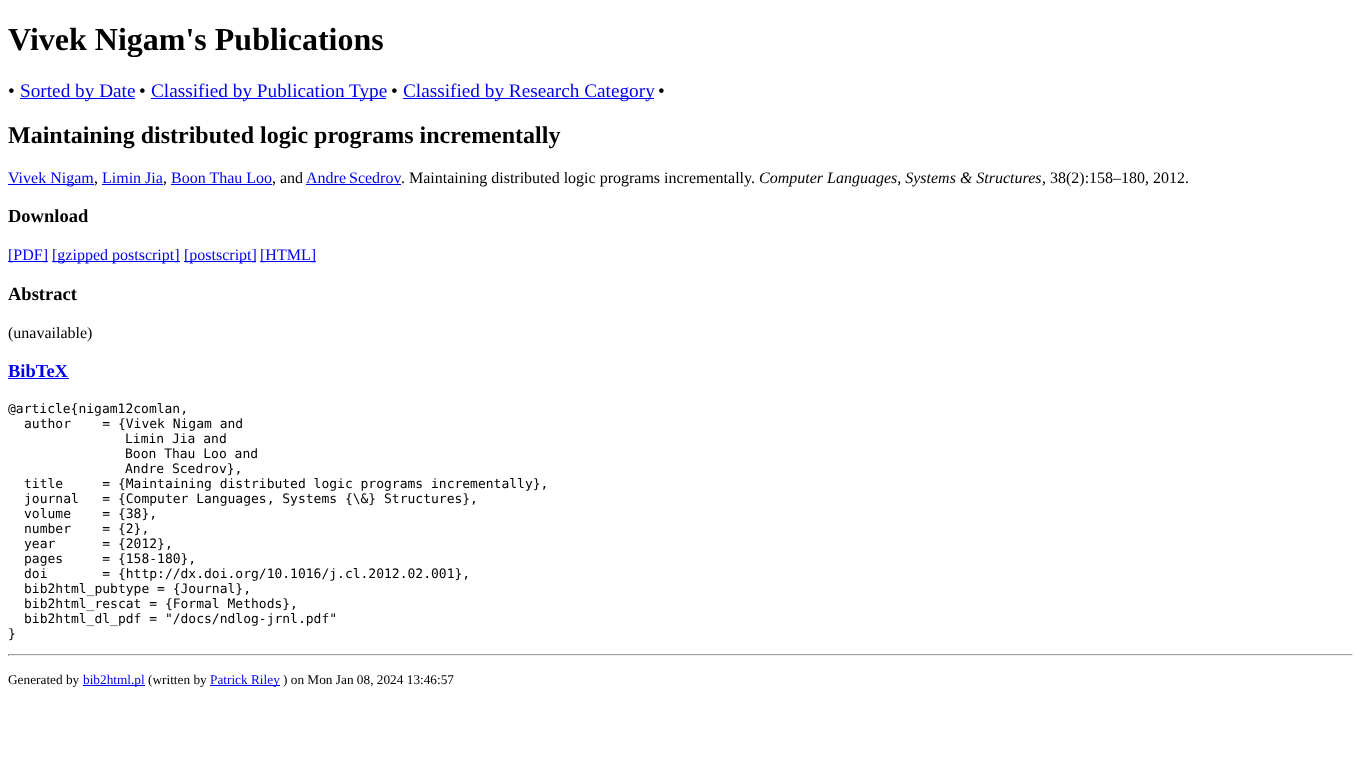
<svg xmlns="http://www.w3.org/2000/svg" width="1359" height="762">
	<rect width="100%" height="100%" fill="#FFFFFF" />
	<text x="8" y="50" font-family="Liberation Serif" font-size="32" font-weight="700" fill="#000000">Vivek Nigam's Publications</text>
	<text x="8" y="97" font-family="Liberation Serif" font-size="19.25" fill="#000000">•</text>
	<rect x="20" y="98" width="115" height="1" fill="#0000EE" />
	<text x="20" y="97" font-family="Liberation Serif" font-size="19.25" fill="#0000EE">Sorted by Date</text>
	<text x="139" y="97" font-family="Liberation Serif" font-size="19.25" fill="#000000">•</text>
	<rect x="151" y="98" width="235" height="1" fill="#0000EE" />
	<text x="151" y="97" font-family="Liberation Serif" font-size="19.25" fill="#0000EE">Classified by Publication Type</text>
	<text x="391" y="97" font-family="Liberation Serif" font-size="19.25" fill="#000000">•</text>
	<rect x="403" y="98" width="251" height="1" fill="#0000EE" />
	<text x="403" y="97" font-family="Liberation Serif" font-size="19.25" fill="#0000EE">Classified by Research Category</text>
	<text x="658" y="97" font-family="Liberation Serif" font-size="19.25" fill="#000000">•</text>
	<text x="8" y="143" font-family="Liberation Serif" font-size="24" font-weight="700" fill="#000000">Maintaining distributed logic programs incrementally</text>
	<rect x="8" y="184" width="86" height="1" fill="#0000EE" />
	<text x="8" y="183" font-family="Liberation Serif" font-size="16" fill="#0000EE">Vivek Nigam</text>
	<text x="94" y="183" font-family="Liberation Serif" font-size="16" fill="#000000">,</text>
	<text x="102" y="183" font-family="Liberation Serif" font-size="16" fill="#0000EE">Limin Jia</text>
	<rect x="102" y="184" width="61" height="1" fill="#0000EE" />
	<text x="163" y="183" font-family="Liberation Serif" font-size="16" fill="#000000">,</text>
	<text x="171" y="183" font-family="Liberation Serif" font-size="16" fill="#0000EE">Boon Thau Loo</text>
	<rect x="171" y="184" width="101" height="1" fill="#0000EE" />
	<text x="272" y="183" font-family="Liberation Serif" font-size="16" fill="#000000">, and</text>
	<text x="306" y="183" word-spacing="-1" font-family="Liberation Serif" font-size="16" fill="#0000EE">Andre Scedrov</text>
	<rect x="306" y="184" width="95" height="1" fill="#0000EE" />
	<text x="401" y="183" font-family="Liberation Serif" font-size="16" fill="#000000">. Maintaining distributed logic programs incrementally.</text>
	<text x="759" y="183" font-family="Liberation Serif" font-size="16" font-style="italic" fill="#000000">Computer Languages, Systems &amp; Structures</text>
	<text x="1042" y="183" font-family="Liberation Serif" font-size="16" fill="#000000">, 38(2):158–180, 2012.</text>
	<text x="8" y="222" font-family="Liberation Serif" font-size="18.5" font-weight="700" fill="#000000">Download</text>
	<rect x="8" y="261" width="40" height="1" fill="#0000EE" />
	<text x="8" y="260" font-family="Liberation Serif" font-size="16" fill="#0000EE">[PDF]</text>
	<rect x="52" y="261" width="128" height="1" fill="#0000EE" />
	<text x="52" y="260" font-family="Liberation Serif" font-size="16" fill="#0000EE">[gzipped postscript]</text>
	<rect x="184" y="261" width="72" height="1" fill="#0000EE" />
	<text x="184" y="260" font-family="Liberation Serif" font-size="16" fill="#0000EE">[postscript]</text>
	<rect x="260" y="261" width="56" height="1" fill="#0000EE" />
	<text x="260" y="260" font-family="Liberation Serif" font-size="16" fill="#0000EE">[HTML]</text>
	<text x="8" y="300" font-family="Liberation Serif" font-size="18.5" font-weight="700" fill="#000000">Abstract</text>
	<text x="8" y="338" font-family="Liberation Serif" font-size="16" fill="#000000">(unavailable)</text>
	<text x="8" y="377" font-family="Liberation Serif" font-size="18.5" font-weight="700" fill="#0000EE">BibTeX</text>
	<rect x="8" y="378" width="61" height="1" fill="#0000EE" />
	<g font-family="DejaVu Sans Mono" font-size="13" fill="#000000">
		<text x="8" y="413">@article{nigam12comlan,</text>
		<text x="24" y="428" xml:space="preserve">author    = {Vivek Nigam and</text>
		<text x="125" y="443">Limin Jia and</text>
		<text x="125" y="458">Boon Thau Loo and</text>
		<text x="125" y="473">Andre Scedrov},</text>
		<text x="24" y="488" xml:space="preserve">title     = {Maintaining distributed logic programs incrementally},</text>
		<text x="24" y="503" xml:space="preserve">journal   = {Computer Languages, Systems {\&amp;} Structures},</text>
		<text x="24" y="518" xml:space="preserve">volume    = {38},</text>
		<text x="24" y="533" xml:space="preserve">number    = {2},</text>
		<text x="24" y="548" xml:space="preserve">year      = {2012},</text>
		<text x="24" y="563" xml:space="preserve">pages     = {158-180},</text>
		<text x="24" y="578" xml:space="preserve">doi       = {http://dx.doi.org/10.1016/j.cl.2012.02.001},</text>
		<text x="24" y="593">bib2html_pubtype = {Journal},</text>
		<text x="24" y="608">bib2html_rescat = {Formal Methods},</text>
		<text x="24" y="623">bib2html_dl_pdf = "/docs/ndlog-jrnl.pdf"</text>
		<text x="8" y="638">}</text>
	</g>
	<rect x="8" y="654" width="1345" height="1" fill="#9F9F9F" />
	<rect x="1352" y="654" width="1" height="2" fill="#EEEEEE" />
	<rect x="8" y="655" width="1345" height="1" fill="#EEEEEE" />
	<rect x="8" y="654" width="1" height="2" fill="#9F9F9F" />
	<text x="8" y="684" font-family="Liberation Serif" font-size="13.3" fill="#000000">Generated by</text>
	<rect x="83" y="685" width="62" height="1" fill="#0000EE" />
	<text x="83" y="684" font-family="Liberation Serif" font-size="13.3" fill="#0000EE">bib2html.pl</text>
	<text x="148" y="684" font-family="Liberation Serif" font-size="13.3" fill="#000000">(written by</text>
	<rect x="210" y="685" width="70" height="1" fill="#0000EE" />
	<text x="210" y="684" font-family="Liberation Serif" font-size="13.3" fill="#0000EE">Patrick Riley</text>
	<text x="283" y="684" font-family="Liberation Serif" font-size="13.3" fill="#000000">) on Mon Jan 08, 2024 13:46:57</text>
</svg>
